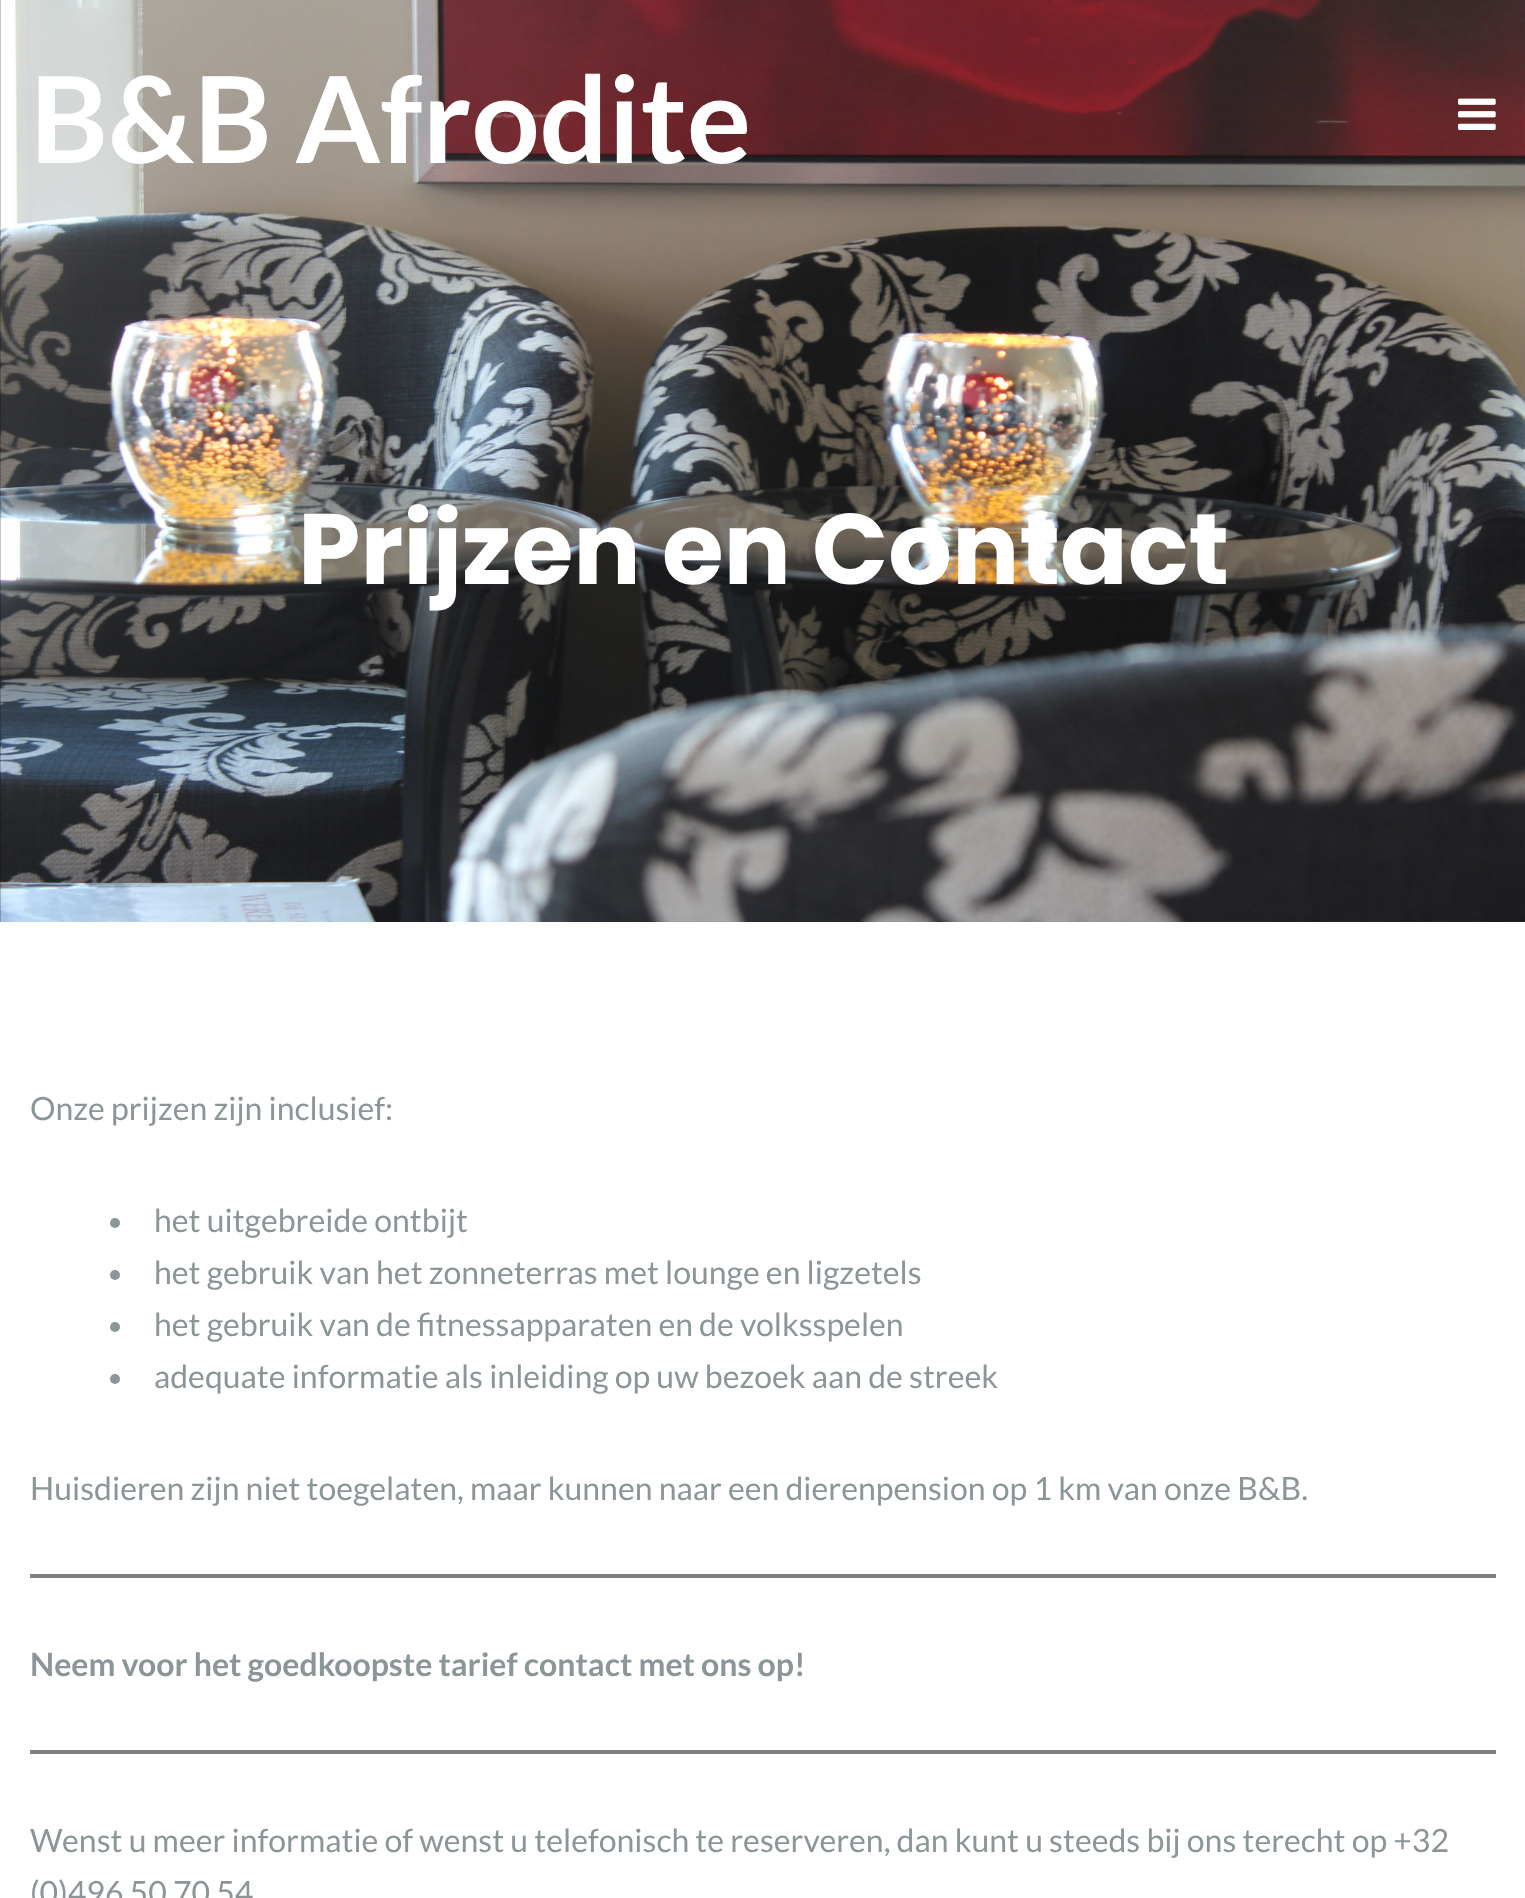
<svg xmlns="http://www.w3.org/2000/svg" width="1525" height="1898">
	<rect width="100%" height="100%" fill="#FFFFFF" />
	<image x="0" y="0" width="1525" height="922" href="assets/img1.png" />
	<text x="30" y="163" font-family="Lato" font-size="120" font-weight="700" fill="#FFFFFF">B&amp;B Afrodite</text>
	<image x="1458" y="98" width="38" height="32" href="assets/img2.png" />
	<text x="298" y="584" font-family="Poppins" font-size="100" font-weight="700" fill="#FFFFFF">Prijzen en Contact</text>
	<text x="30" y="1120" font-family="Lato" font-size="32" fill="#8C9597">Onze prijzen zijn inclusief:</text>
	<circle cx="115" cy="1223" r="5" fill="#8C9597" />
	<text x="154" y="1232" font-family="Lato" font-size="32" fill="#8C9597">het uitgebreide ontbijt</text>
	<circle cx="115" cy="1275" r="5" fill="#8C9597" />
	<text x="154" y="1284" font-family="Lato" font-size="32" fill="#8C9597">het gebruik van het zonneterras met lounge en ligzetels</text>
	<circle cx="115" cy="1327" r="5" fill="#8C9597" />
	<text x="154" y="1336" font-family="Lato" font-size="32" fill="#8C9597">het gebruik van de fitnessapparaten en de volksspelen</text>
	<circle cx="115" cy="1379" r="5" fill="#8C9597" />
	<g font-family="Lato" font-size="32" fill="#8C9597">
		<text x="154" y="1388">adequate informatie als inleiding op uw bezoek aan de streek</text>
		<text x="30" y="1500">Huisdieren zijn niet toegelaten, maar kunnen naar een dierenpension op 1 km van onze B&amp;B.</text>
	</g>
	<rect x="30" y="1574" width="1466" height="4" fill="#808080" />
	<text x="30" y="1676" font-family="Lato" font-size="32" font-weight="700" fill="#8C9597">Neem voor het goedkoopste tarief contact met ons op!</text>
	<rect x="30" y="1750" width="1466" height="4" fill="#808080" />
	<g font-family="Lato" font-size="32" fill="#8C9597">
		<text x="30" y="1852">Wenst u meer informatie of wenst u telefonisch te reserveren, dan kunt u steeds bij ons terecht op +32</text>
		<text x="30" y="1904">(0)496 50 70 54</text>
	</g>
</svg>
